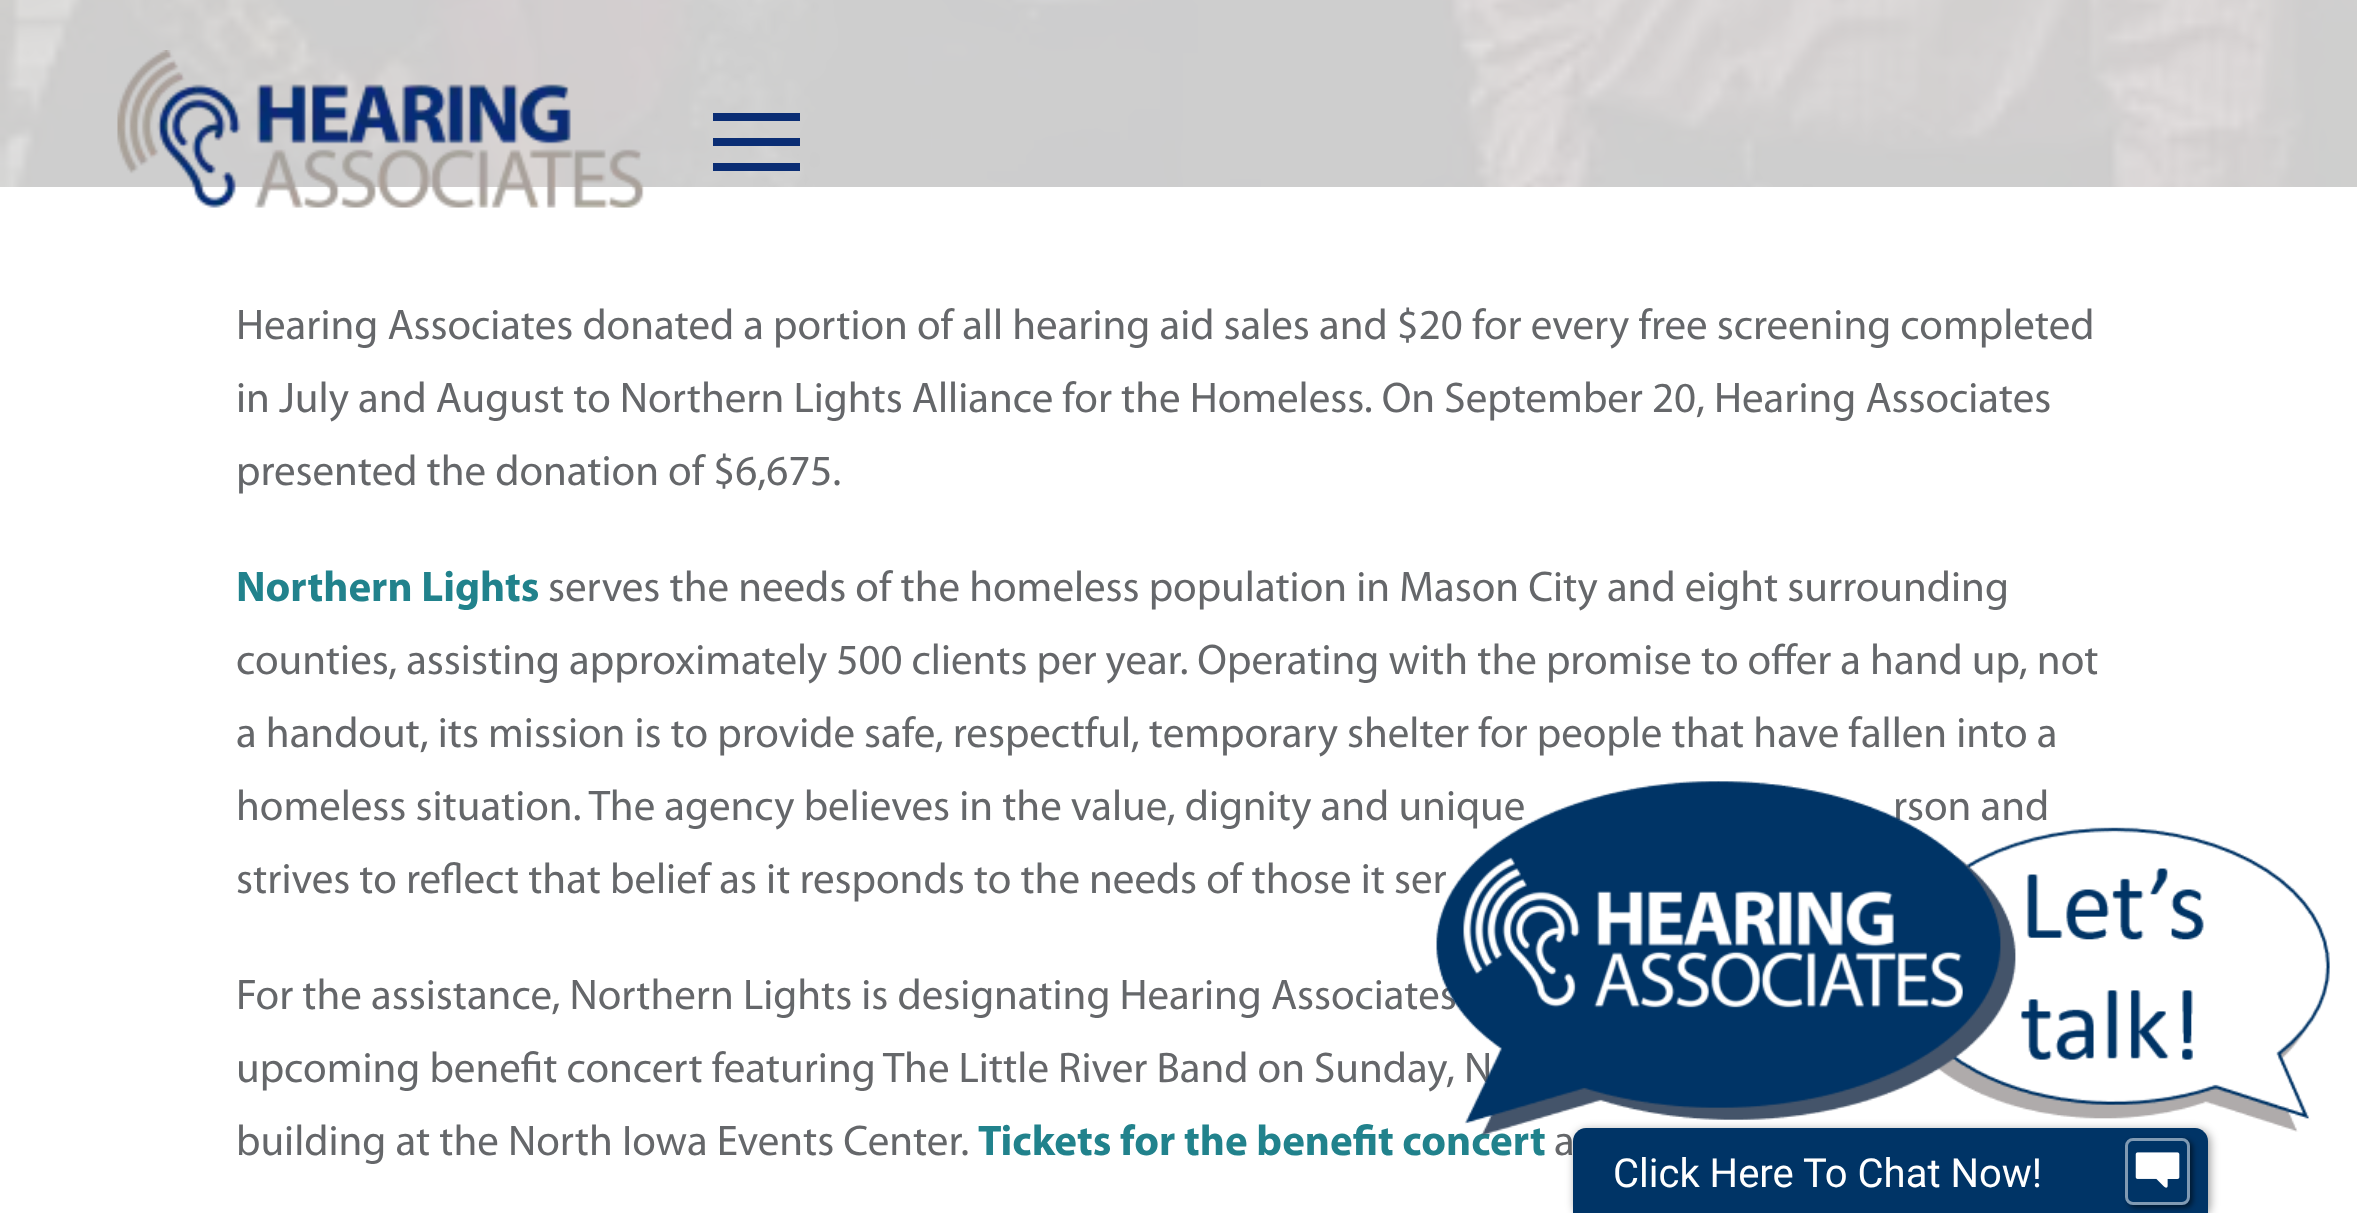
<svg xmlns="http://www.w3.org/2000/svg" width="2357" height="1213">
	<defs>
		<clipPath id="clip1"><path d="M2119 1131H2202V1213H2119ZM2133 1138H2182C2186.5 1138 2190 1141.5 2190 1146V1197C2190 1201.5 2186.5 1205 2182 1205H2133C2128.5 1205 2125 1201.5 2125 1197V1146C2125 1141.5 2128.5 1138 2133 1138Z" clip-rule="evenodd" /></clipPath>
	</defs>
	<rect width="100%" height="100%" fill="#FFFFFF" />
	<image x="0" y="0" width="2357" height="187" href="assets/img2.png" />
	<image x="117" y="50" width="527" height="158" href="assets/img1.png" />
	<rect x="713" y="113" width="87" height="8" fill="#0A2D74" />
	<rect x="713" y="138" width="87" height="8" fill="#0A2D74" />
	<rect x="713" y="163" width="87" height="8" fill="#0A2D74" />
	<g font-family="Myriad" font-size="42.95" fill="#65676A">
		<text x="236" y="339">Hearing Associates donated a portion of all hearing aid sales and $20 for every free screening completed</text>
		<text x="236" y="412">in July and August to Northern Lights Alliance for the Homeless. On September 20, Hearing Associates</text>
		<text x="236" y="485">presented the donation of $6,675.</text>
	</g>
	<text x="236" y="601" font-family="Myriad" font-size="42.95" font-weight="700" fill="#21828C">Northern Lights</text>
	<g font-family="Myriad" font-size="42.95" fill="#65676A">
		<text x="548" y="601">serves the needs of the homeless population in Mason City and eight surrounding</text>
		<text x="236" y="674">counties, assisting approximately 500 clients per year. Operating with the promise to offer a hand up, not</text>
		<text x="236" y="747">a handout, its mission is to provide safe, respectful, temporary shelter for people that have fallen into a</text>
		<text x="236" y="820">homeless situation. The agency believes in the value, dignity and unique</text>
		<text x="1893" y="820">rson and</text>
		<text x="236" y="893">strives to reflect that belief as it responds to the needs of those it ser</text>
		<text x="236" y="1009">For the assistance, Northern Lights is designating Hearing Associates</text>
		<text x="236" y="1082">upcoming benefit concert featuring The Little River Band on Sunday, N</text>
		<text x="236" y="1155">building at the North Iowa Events Center.</text>
	</g>
	<text x="978" y="1155" font-family="Myriad" font-size="42.95" font-weight="700" fill="#21828C">Tickets for the benefit concert</text>
	<text x="1554" y="1155" font-family="Myriad" font-size="42.95" fill="#65676A">a</text>
	<rect x="1575" y="1130" width="635" height="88" rx="13" fill="#000000" fill-opacity="0.4" filter="blur(5px)" />
	<path d="M1586 1128H2195C2202 1128 2208 1134 2208 1141V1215H1573V1141C1573 1134 1579 1128 1586 1128Z" fill="#003466" />
	<g clip-path="url(#clip1)">
		<rect x="2128" y="1140" width="65" height="68" rx="8" fill="#000000" fill-opacity="0.5" filter="blur(2.5px)" />
	</g>
	<image x="1436" y="781" width="894" height="355" href="assets/img3.png" />
	<text x="1613" y="1187" font-family="Roboto" font-size="40" fill="#FFFFFF">Click Here To Chat Now!</text>
	<rect x="2126.5" y="1139.5" width="62" height="64" rx="6.5" fill="none" stroke="#FFFFFF" stroke-opacity="0.5" stroke-width="3" />
	<image x="2135" y="1152" width="45" height="36" href="assets/img4.png" />
</svg>
